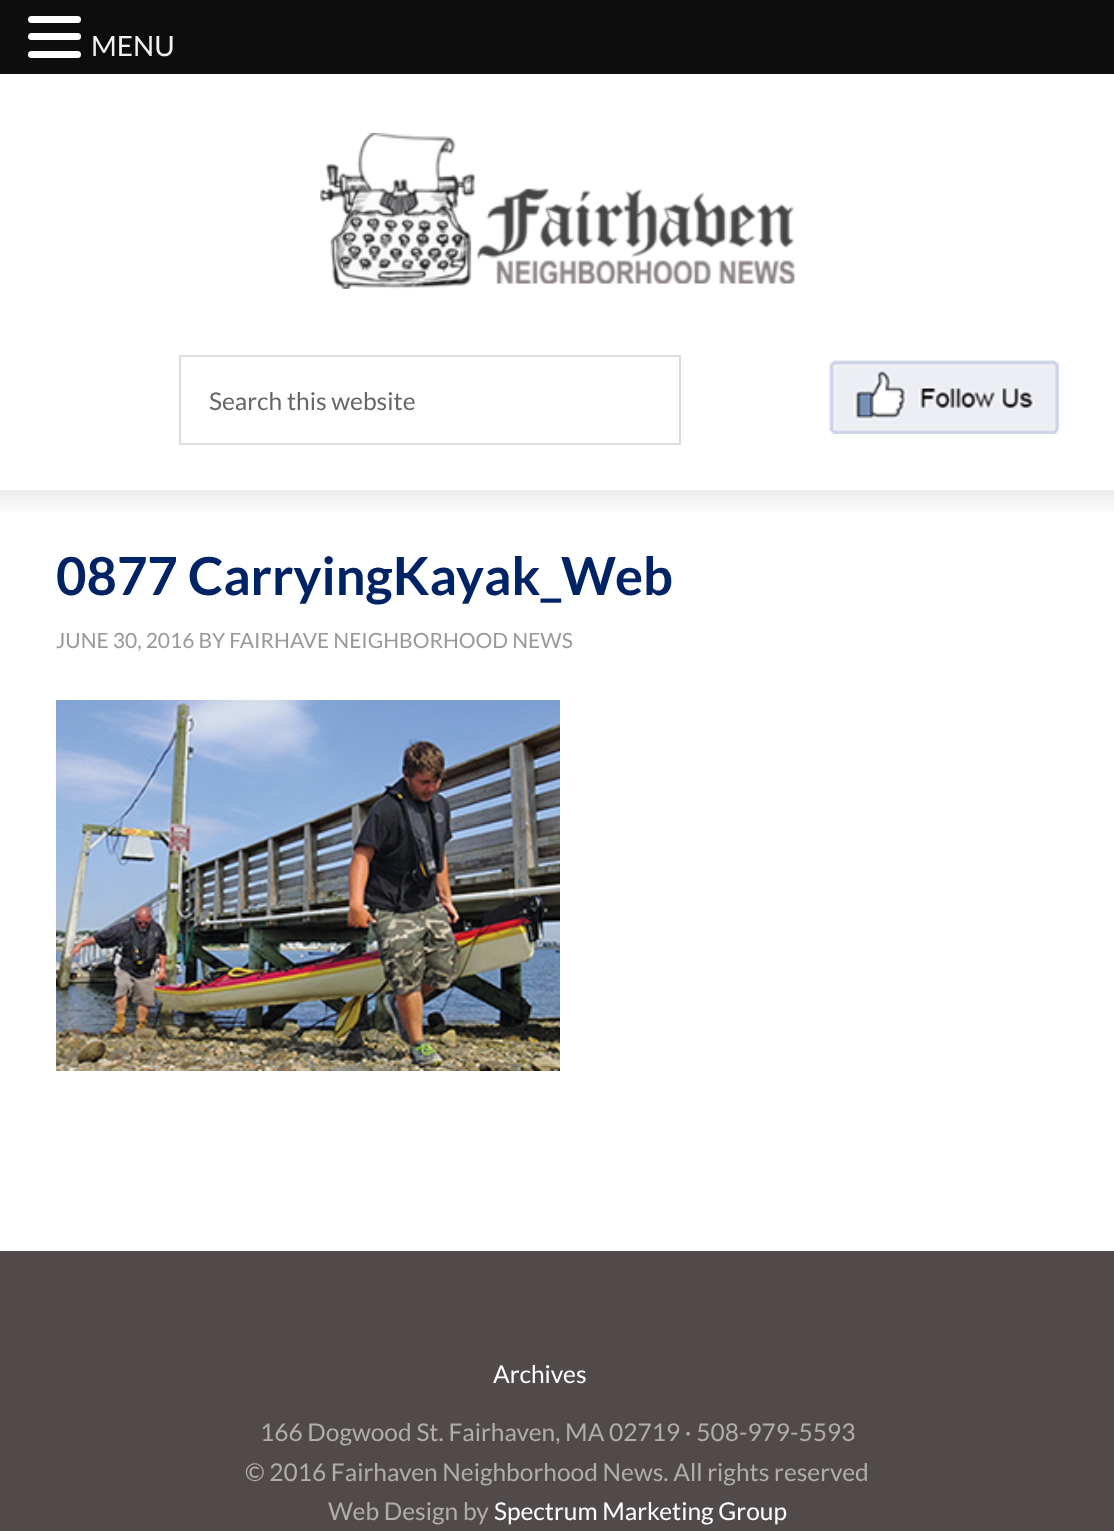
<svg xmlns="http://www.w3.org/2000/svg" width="1114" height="1531">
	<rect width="100%" height="100%" fill="#FFFFFF" />
	<rect x="0" y="0" width="1114" height="74" fill="#0D0D0D" />
	<rect x="28" y="16" width="53" height="7" rx="3.5" fill="#FFFFFF" />
	<rect x="28" y="33" width="53" height="7" rx="3.5" fill="#FFFFFF" />
	<rect x="28" y="51" width="53" height="7" rx="3.5" fill="#FFFFFF" />
	<text x="91" y="56" font-family="Lato" font-size="28" fill="#F2F2F2">MENU</text>
	<image x="320" y="133" width="475" height="156" href="assets/img1.png" />
	<rect x="180" y="356" width="500" height="88" fill="none" stroke="#DDDDDD" stroke-width="2" />
	<text x="209" y="410" font-family="Lato" font-size="24.5" fill="#666666">Search this website</text>
	<image x="829" y="360" width="230" height="74" href="assets/img2.png" />
	<image x="0" y="490" width="1114" height="21" href="assets/img3.png" />
	<text x="56" y="595" font-family="Lato" font-size="52.5" font-weight="700" fill="#002366">0877 CarryingKayak_Web</text>
	<text x="56" y="648" font-family="Lato" font-size="21" fill="#999999">JUNE 30, 2016 BY FAIRHAVE NEIGHBORHOOD NEWS</text>
	<image x="56" y="700" width="504" height="371" href="assets/img4.png" />
	<rect x="0" y="1251" width="1114" height="280" fill="#514A4A" />
	<text x="493" y="1383" font-family="Lato" font-size="24.5" fill="#FFFFFF">Archives</text>
	<g font-family="Lato" font-size="24.5" fill="#B1ADAD">
		<text x="260" y="1441">166 Dogwood St. Fairhaven, MA 02719 · 508-979-5593</text>
		<text x="245" y="1481">© 2016 Fairhaven Neighborhood News. All rights reserved</text>
		<text x="328" y="1520">Web Design by</text>
	</g>
	<text x="494" y="1520" font-family="Lato" font-size="24.5" fill="#FFFFFF">Spectrum Marketing Group</text>
</svg>
